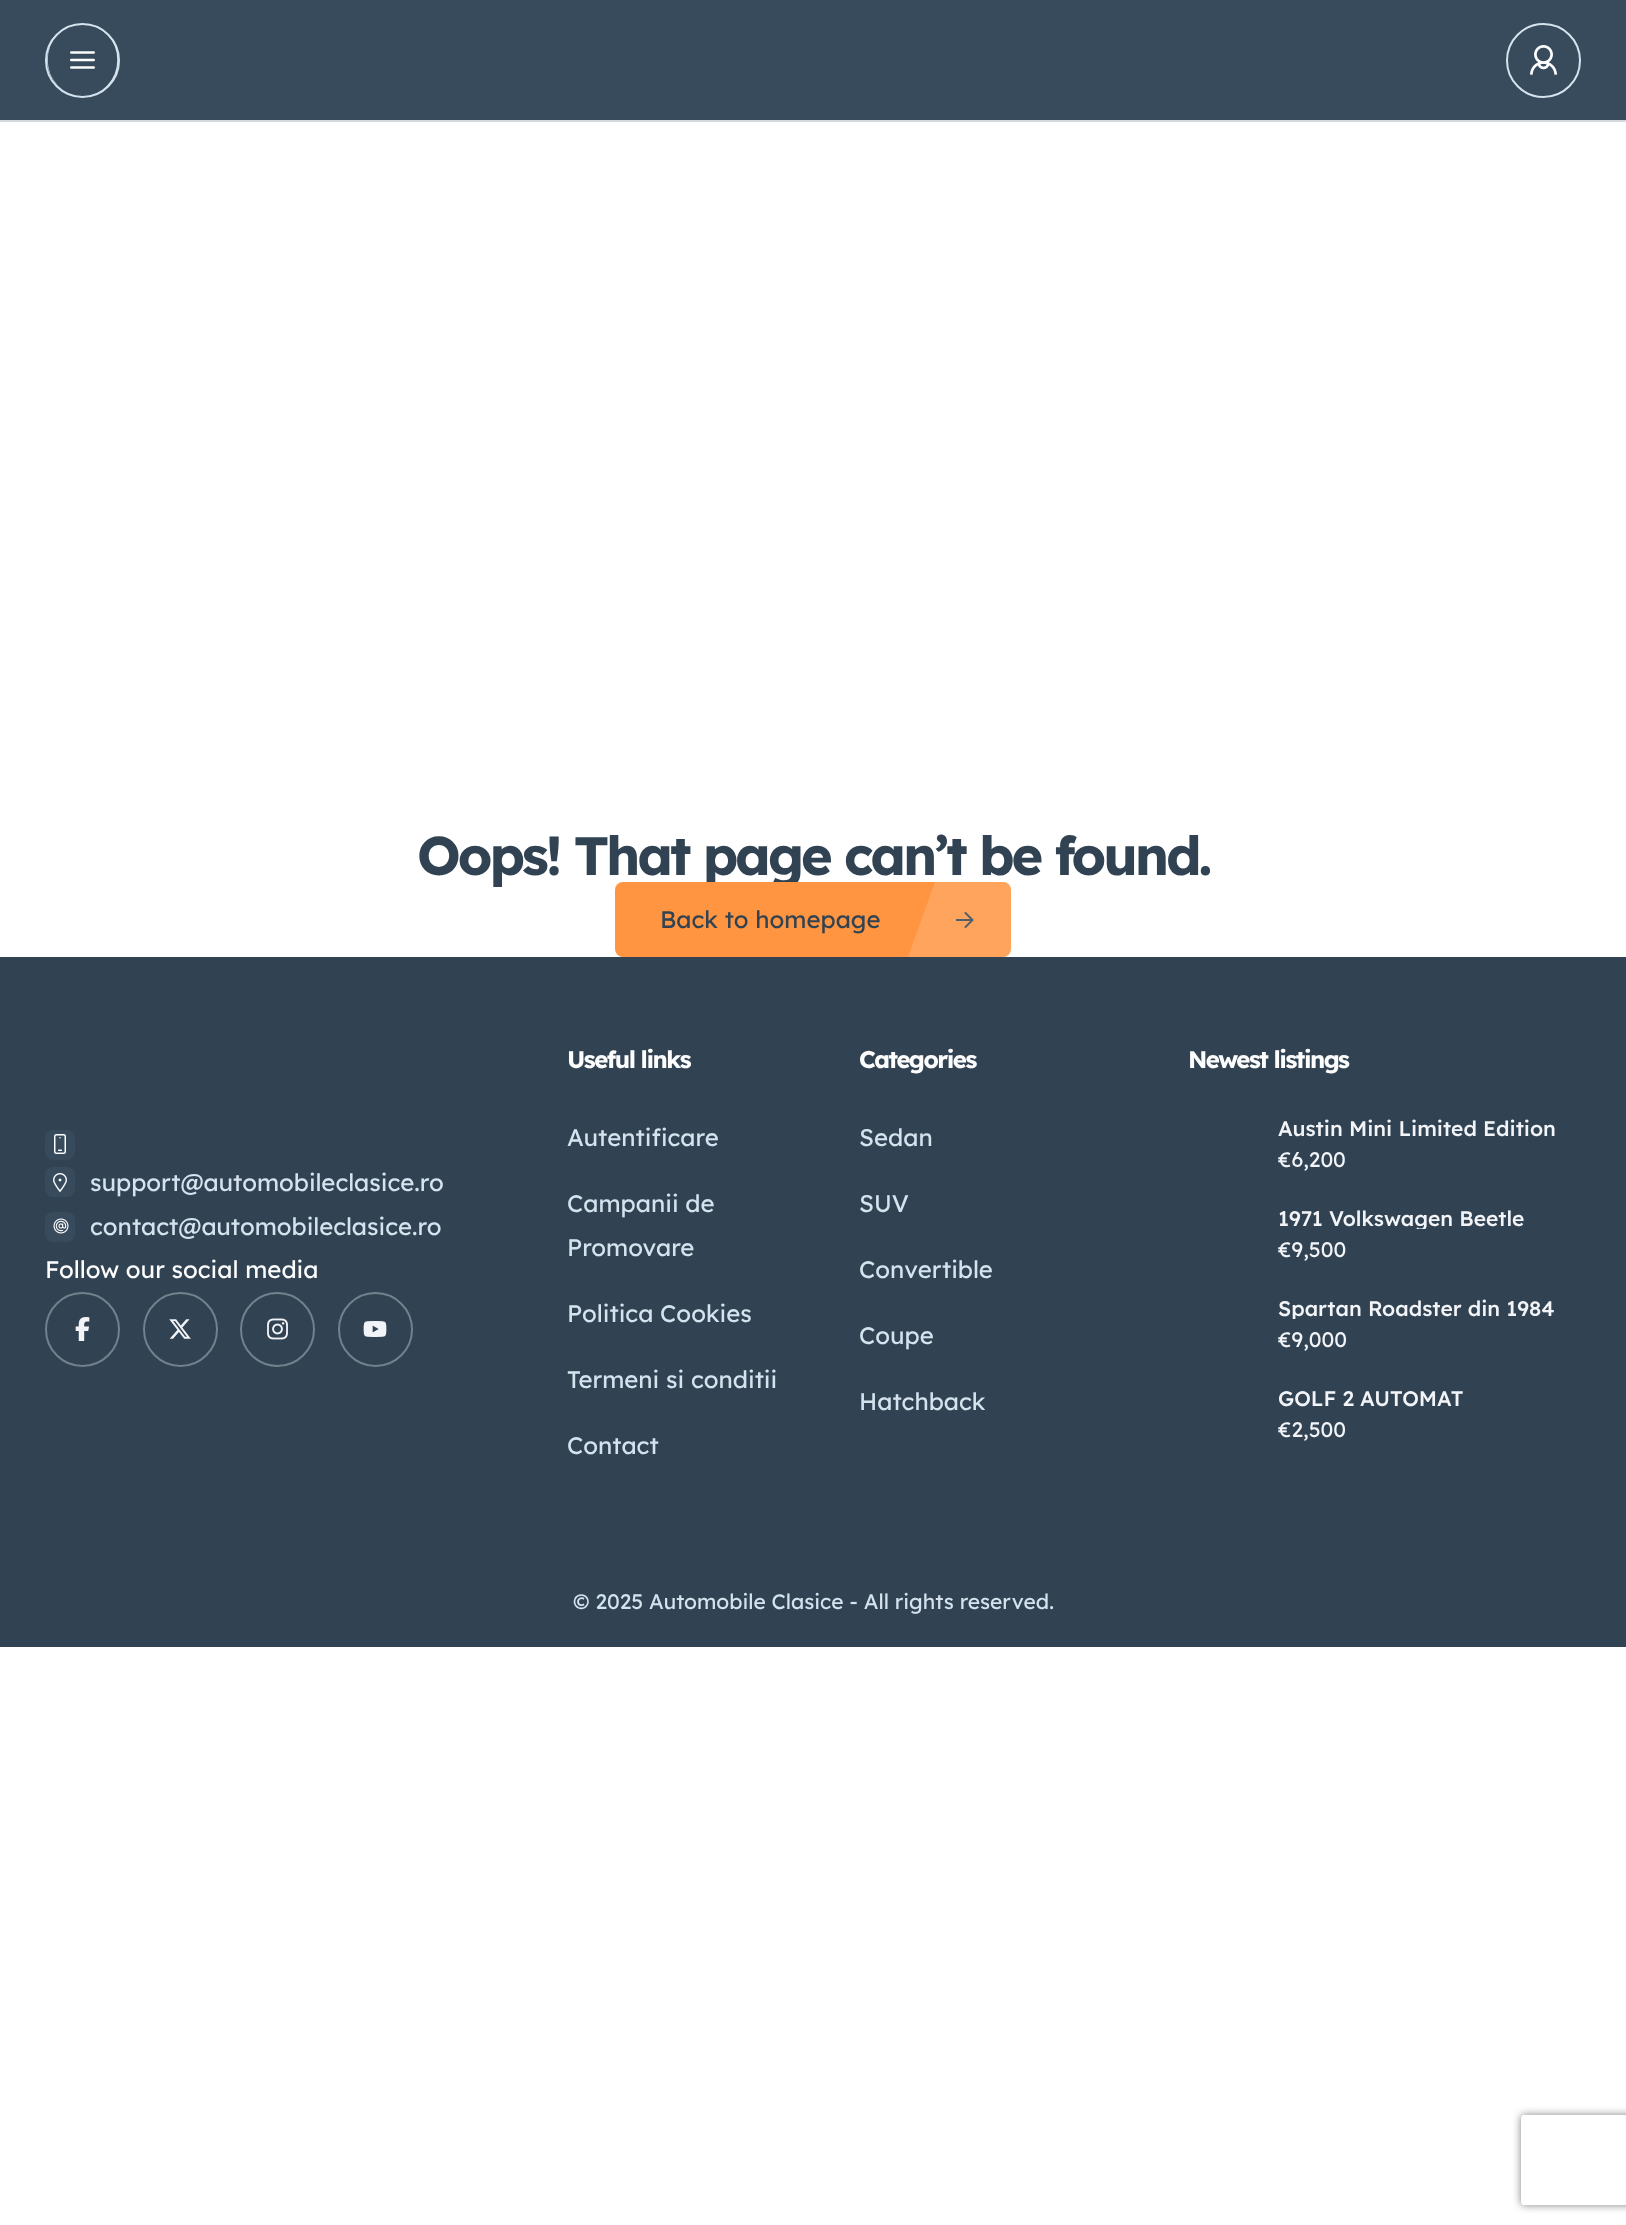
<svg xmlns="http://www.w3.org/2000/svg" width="1626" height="2225">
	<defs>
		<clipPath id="clip1"><rect x="47" y="24" width="72" height="72" rx="36" /></clipPath>
		<clipPath id="clip2"><rect x="1278" y="1208" width="285" height="21" /></clipPath>
		<clipPath id="clip3"><rect x="1278" y="1298" width="285" height="21" /></clipPath>
		<clipPath id="clip4"><path d="M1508 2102H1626V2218H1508ZM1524 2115H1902C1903.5 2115 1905 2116.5 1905 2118V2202C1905 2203.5 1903.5 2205 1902 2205H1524C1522.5 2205 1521 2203.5 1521 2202V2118C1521 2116.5 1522.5 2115 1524 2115Z" clip-rule="evenodd" /></clipPath>
	</defs>
	<rect width="100%" height="100%" fill="#FFFFFF" />
	<rect x="0" y="0" width="1626" height="120" fill="#374B5C" />
	<circle cx="82.5" cy="60.5" r="36.5" fill="none" stroke="#D5E3EE" stroke-width="2" />
	<g clip-path="url(#clip1)">
		<path d="M82.5 23C102 23 118 39.5 118 60C118 80.5 102 97 82.5 97C63 97 47 80.5 47 60C47 39.5 63 23 82.5 23Z" fill="none" stroke="#D5E3EE" stroke-width="1.5" />
	</g>
	<image x="70" y="51" width="25" height="18" href="assets/img1.png" />
	<circle cx="1543.5" cy="60.5" r="36.5" fill="none" stroke="#D5E3EE" stroke-width="2" />
	<image x="1530" y="45" width="27" height="30" href="assets/img2.png" />
	<rect x="0" y="120" width="1626" height="2" fill="#D5D9DE" />
	<text x="417" y="875" font-family="Lexend Deca" font-size="54" font-weight="700" letter-spacing="-3" fill="#314352">Oops! That page can’t be found.</text>
	<rect x="615" y="882" width="396" height="75" rx="8" fill="#FF9540" />
	<text x="660" y="928" font-family="Lexend Deca" font-size="24" fill="#314352">Back to homepage</text>
	<image x="956" y="912" width="18" height="16" href="assets/img3.png" />
	<path d="M908 957L935 882H1003C1007 882 1011 886 1011 890V949C1011 953 1007 957 1003 957Z" fill="#FDFDFE" fill-opacity="0.15" />
	<rect x="0" y="957" width="1626" height="690" fill="#314352" />
	<rect x="45" y="1130" width="30" height="30" rx="8" fill="#374B5C" />
	<image x="54" y="1134" width="12" height="20" href="assets/img4.png" />
	<rect x="45" y="1167" width="30" height="30" rx="8" fill="#374B5C" />
	<image x="53" y="1173" width="14" height="20" href="assets/img5.png" />
	<text x="90" y="1191" font-family="Lexend Deca" font-size="24" fill="#D5E3EE">support@automobileclasice.ro</text>
	<rect x="45" y="1212" width="30" height="30" rx="8" fill="#374B5C" />
	<image x="53" y="1218" width="16" height="16" href="assets/img6.png" />
	<text x="90" y="1235" font-family="Lexend Deca" font-size="24" fill="#D5E3EE">contact@automobileclasice.ro</text>
	<text x="45" y="1278" font-family="Lexend Deca" font-size="24" fill="#FDFDFE">Follow our social media</text>
	<circle cx="82.5" cy="1329.5" r="36.5" fill="none" stroke="#73818C" stroke-width="2" />
	<image x="75" y="1317" width="15" height="24" href="assets/img7.png" />
	<circle cx="180.5" cy="1329.5" r="36.5" fill="none" stroke="#73818C" stroke-width="2" />
	<image x="169" y="1319" width="22" height="20" href="assets/img8.png" />
	<circle cx="277.5" cy="1329.5" r="36.5" fill="none" stroke="#73818C" stroke-width="2" />
	<image x="267" y="1318" width="21" height="22" href="assets/img9.png" />
	<circle cx="375.5" cy="1329.5" r="36.5" fill="none" stroke="#73818C" stroke-width="2" />
	<image x="363" y="1321" width="24" height="16" href="assets/img10.png" />
	<text x="567" y="1068" font-family="Lexend Deca" font-size="24" font-weight="700" letter-spacing="-1.5" fill="#FDFDFE">Useful links</text>
	<g font-family="Lexend Deca" font-size="24" fill="#D5E3EE">
		<text x="567" y="1146">Autentificare</text>
		<text x="567" y="1212">Campanii de</text>
		<text x="567" y="1256">Promovare</text>
		<text x="567" y="1322">Politica Cookies</text>
		<text x="567" y="1388">Termeni si conditii</text>
		<text x="567" y="1454">Contact</text>
	</g>
	<text x="859" y="1068" font-family="Lexend Deca" font-size="24" font-weight="700" letter-spacing="-1.5" fill="#FDFDFE">Categories</text>
	<g font-family="Lexend Deca" font-size="24" fill="#D5E3EE">
		<text x="859" y="1146">Sedan</text>
		<text x="859" y="1212">SUV</text>
		<text x="859" y="1278">Convertible</text>
		<text x="859" y="1344">Coupe</text>
		<text x="859" y="1410">Hatchback</text>
	</g>
	<text x="1188" y="1068" font-family="Lexend Deca" font-size="24" font-weight="700" letter-spacing="-1.5" fill="#FDFDFE">Newest listings</text>
	<text x="1278" y="1136" font-family="Lexend Deca" font-size="21" font-weight="500" fill="#F2F4F8">Austin Mini Limited Edition</text>
	<text x="1278" y="1167" font-family="Lexend Deca" font-size="21" fill="#F2F4F8">€6,200</text>
	<g clip-path="url(#clip2)">
		<text x="1278" y="1226" font-family="Lexend Deca" font-size="21" font-weight="500" fill="#F2F4F8">1971 Volkswagen Beetle</text>
	</g>
	<text x="1278" y="1257" font-family="Lexend Deca" font-size="21" fill="#F2F4F8">€9,500</text>
	<g clip-path="url(#clip3)">
		<text x="1278" y="1316" font-family="Lexend Deca" font-size="21" font-weight="500" fill="#F2F4F8">Spartan Roadster din 1984</text>
	</g>
	<text x="1278" y="1347" font-family="Lexend Deca" font-size="21" fill="#F2F4F8">€9,000</text>
	<text x="1278" y="1406" font-family="Lexend Deca" font-size="21" font-weight="500" fill="#F2F4F8">GOLF 2 AUTOMAT</text>
	<text x="1278" y="1437" font-family="Lexend Deca" font-size="21" fill="#F2F4F8">€2,500</text>
	<text x="573" y="1609" font-family="Lexend Deca" font-size="21" fill="#D5E3EE">© 2025 Automobile Clasice - All rights reserved.</text>
	<g clip-path="url(#clip4)">
		<rect x="1521" y="2115" width="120" height="90" rx="3" fill="#808080" filter="blur(4px)" />
	</g>
</svg>
